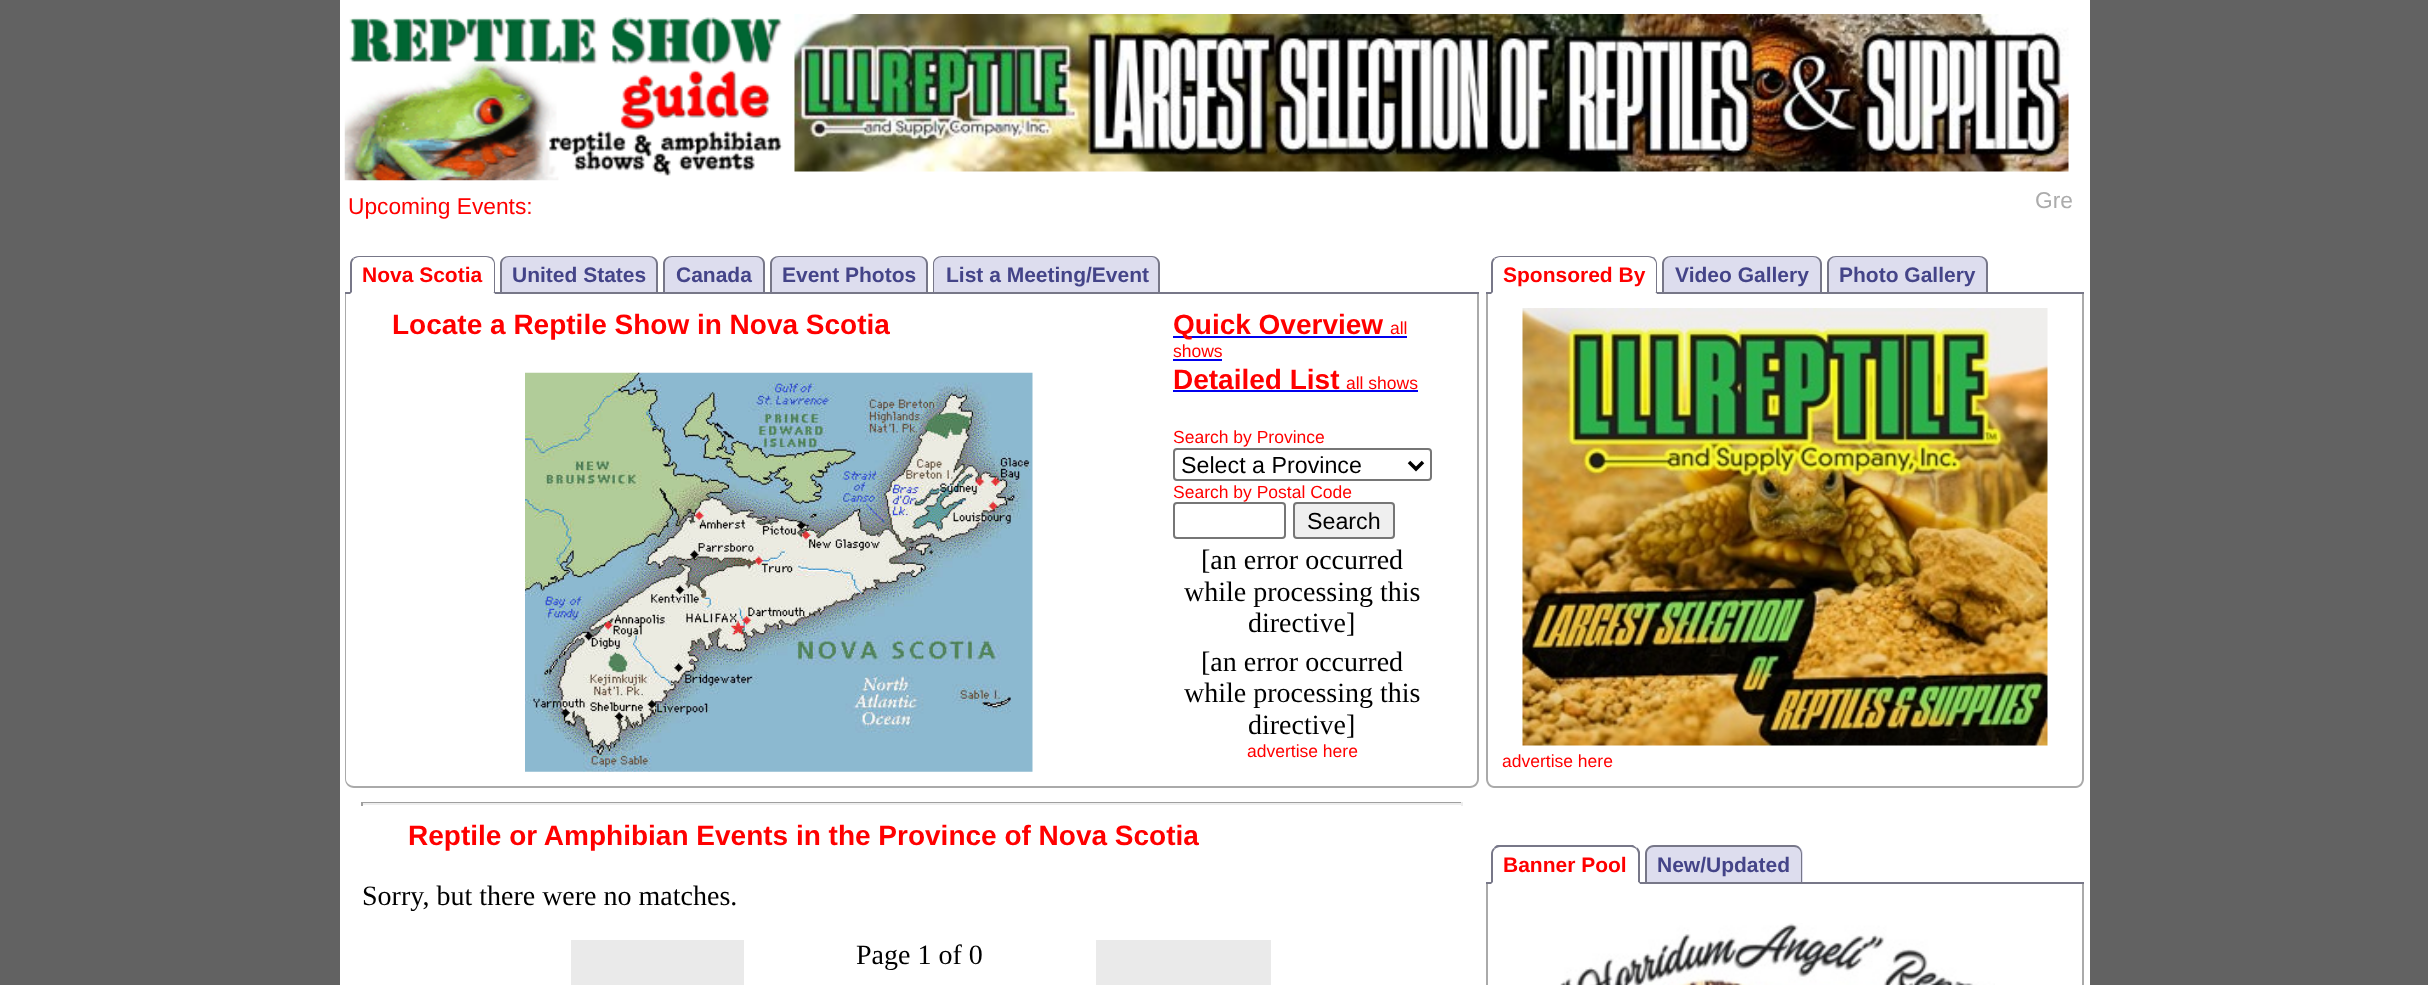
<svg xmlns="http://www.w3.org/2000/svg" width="2428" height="985">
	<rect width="100%" height="100%" fill="#626262" />
	<rect x="340" y="0" width="1750" height="985" fill="#FFFFFF" />
	<image x="344" y="17" width="439" height="164" href="assets/img1.png" />
	<image x="794" y="14" width="1275" height="158" href="assets/img2.png" />
	<text x="348" y="214" font-family="Liberation Sans" font-size="22.75" fill="#FF0000">Upcoming Events:</text>
	<text x="2035" y="208" font-family="Liberation Sans" font-size="22.75" fill="#ACACAC">Gre</text>
	<rect x="345" y="292" width="1134" height="2" fill="#777788" />
	<path d="M359 256H486C491 256 495 260 495 265V294H350V265C350 260 354 256 359 256Z" fill="#FFFFFF" />
	<text x="362" y="282" font-family="Liberation Sans" font-size="21" font-weight="700" fill="#FF0000">Nova Scotia</text>
	<path d="M359 256C356 256 354 257 353 258L354 259C355 258 357 257 359 257H486C488 257 490 258 492 259L493 258C491 257 489 256 486 256Z" fill="#777788" />
	<path d="M495 294V264C495 261.5 494 259.5 492.5 258L491.5 259C493 260.5 494 262 494 264V292H493Z" fill="#777788" />
	<path d="M495 294L493 292H352L350 294Z" fill="#FFFFFF" />
	<path d="M350 294L352 292V264C352 262 352.5 260.5 354 259.5L352.5 258C351 259.5 350 261.5 350 264Z" fill="#777788" />
	<path d="M510 256H649C654 256 658 260 658 265V292H501V265C501 260 505 256 510 256Z" fill="#DDDDEE" />
	<path d="M509 256H649C654 256 658 259 658 264V292H500V264C500 259 504 256 509 256ZM509 257H649C653 257 656 260 656 264V292H502V264C502 260 505 257 509 257Z" fill="#777788" fill-rule="evenodd" />
	<text x="512" y="282" font-family="Liberation Sans" font-size="21" font-weight="700" fill="#444488">United States</text>
	<path d="M672 256H756C761 256 765 260 765 265V292H663V265C663 260 667 256 672 256Z" fill="#DDDDEE" />
	<path d="M672 256H756C761 256 765 259 765 264V292H663V264C663 259 667 256 672 256ZM672 257H756C760 257 763 260 763 264V292H665V264C665 260 668 257 672 257Z" fill="#777788" fill-rule="evenodd" />
	<text x="676" y="282" font-family="Liberation Sans" font-size="21" font-weight="700" fill="#444488">Canada</text>
	<path d="M779 256H919C924 256 928 260 928 265V292H770V265C770 260 774 256 779 256Z" fill="#DDDDEE" />
	<path d="M779 256H919C924 256 928 259 928 264V292H770V264C770 259 774 256 779 256ZM779 257H919C923 257 926 260 926 264V292H772V264C772 260 775 257 779 257Z" fill="#777788" fill-rule="evenodd" />
	<text x="782" y="282" font-family="Liberation Sans" font-size="21" font-weight="700" fill="#444488">Event Photos</text>
	<path d="M942 256H1151C1156 256 1160 260 1160 265V292H933V265C933 260 937 256 942 256Z" fill="#DDDDEE" />
	<path d="M942 256H1152C1156 256 1160 259 1160 264V292H933V264C933 259 937 256 942 256ZM942 257H1152C1155 257 1158 260 1158 264V292H934V264C934 260 938 257 942 257Z" fill="#777788" fill-rule="evenodd" />
	<text x="946" y="282" font-family="Liberation Sans" font-size="21" font-weight="700" fill="#444488">List a Meeting/Event</text>
	<path d="M345 294H1479V779C1479 784 1475 788 1470 788H354C349 788 345 784 345 779ZM346 294H1477V779C1477 783 1474 786 1470 786H354C350 786 346 783 346 779Z" fill="#AAAAAA" fill-rule="evenodd" />
	<text x="392" y="334" font-family="Liberation Sans" font-size="28" font-weight="700" fill="#FF0000">Locate a Reptile Show in Nova Scotia</text>
	<image x="525" y="372" width="508" height="400" href="assets/img3.png" />
	<rect x="1173" y="336" width="234" height="2" fill="#0000EE" />
	<text x="1173" y="334" font-family="Liberation Sans" font-size="28" font-weight="700" fill="#FF0000">Quick Overview</text>
	<g font-family="Liberation Sans" font-size="17.5" fill="#FF0000">
		<text x="1390" y="334">all</text>
		<text x="1173" y="357">shows</text>
	</g>
	<rect x="1173" y="359" width="49" height="2" fill="#0000EE" />
	<text x="1173" y="389" font-family="Liberation Sans" font-size="28" font-weight="700" fill="#FF0000">Detailed List</text>
	<text x="1346" y="389" font-family="Liberation Sans" font-size="17.5" fill="#FF0000">all shows</text>
	<rect x="1173" y="390" width="245" height="2" fill="#0000EE" />
	<text x="1173" y="443" font-family="Liberation Sans" font-size="17.5" fill="#FF0000">Search by Province</text>
	<rect x="1174" y="449" width="257" height="31" rx="3" fill="none" stroke="#767676" stroke-width="2" />
	<path d="M1409 462L1416 469L1423 462" fill="none" stroke="#000000" stroke-width="3.5" />
	<text x="1181" y="473" font-family="Liberation Sans" font-size="23.25" fill="#000000">Select a Province</text>
	<text x="1173" y="498" font-family="Liberation Sans" font-size="17.5" fill="#FF0000">Search by Postal Code</text>
	<rect x="1174" y="503" width="111" height="35" rx="3" fill="none" stroke="#767676" stroke-width="2" />
	<rect x="1294" y="503" width="100" height="35" rx="3" fill="#EFEFEF" stroke="#767676" stroke-width="2" />
	<text x="1307" y="529" font-family="Liberation Sans" font-size="23.25" fill="#000000">Search</text>
	<g font-family="Liberation Serif" font-size="28" fill="#000000">
		<text x="1201" y="569">[an error occurred</text>
		<text x="1184" y="601">while processing this</text>
		<text x="1248" y="632">directive]</text>
		<text x="1201" y="671">[an error occurred</text>
		<text x="1184" y="702">while processing this</text>
		<text x="1248" y="734">directive]</text>
	</g>
	<text x="1247" y="757" font-family="Liberation Sans" font-size="17.5" fill="#FF0000">advertise here</text>
	<rect x="361" y="802" width="1102" height="1" fill="#9F9F9F" />
	<rect x="1461" y="802" width="2" height="4" fill="#EEEEEE" />
	<rect x="361" y="803" width="1102" height="2" fill="#EEEEEE" />
	<rect x="361" y="802" width="2" height="4" fill="#9F9F9F" />
	<text x="408" y="845" font-family="Liberation Sans" font-size="28" font-weight="700" fill="#FF0000">Reptile or Amphibian Events in the Province of Nova Scotia</text>
	<text x="362" y="905" font-family="Liberation Serif" font-size="28" fill="#000000">Sorry, but there were no matches.</text>
	<rect x="571" y="940" width="173" height="45" fill="#EAEAEA" />
	<text x="856" y="964" font-family="Liberation Serif" font-size="28" fill="#000000">Page 1 of 0</text>
	<rect x="1096" y="940" width="175" height="45" fill="#EAEAEA" />
	<rect x="1486" y="292" width="598" height="2" fill="#777788" />
	<path d="M1500 256H1648C1653 256 1657 260 1657 265V294H1491V265C1491 260 1495 256 1500 256Z" fill="#FFFFFF" />
	<text x="1503" y="282" font-family="Liberation Sans" font-size="21" font-weight="700" fill="#FF0000">Sponsored By</text>
	<path d="M1500 256C1498 256 1495 257 1494 258L1495 259C1496 258 1498 257 1500 257H1648C1650 257 1652 258 1654 259L1655 258C1653 257 1651 256 1648 256Z" fill="#777788" />
	<path d="M1657 294V264C1657 261.5 1656 259.5 1654.5 258L1653.5 259C1655 260.5 1656 262 1656 264V292H1655Z" fill="#777788" />
	<path d="M1657 294L1655 292H1493L1491 294Z" fill="#FFFFFF" />
	<path d="M1491 294L1493 292V264C1493 262 1493.5 260.5 1495 259.5L1493.5 258C1492 259.5 1491 261.5 1491 264Z" fill="#777788" />
	<path d="M1672 256H1813C1818 256 1822 260 1822 265V292H1663V265C1663 260 1667 256 1672 256Z" fill="#DDDDEE" />
	<path d="M1671 256H1813C1818 256 1822 259 1822 264V292H1662V264C1662 259 1666 256 1671 256ZM1671 257H1813C1817 257 1820 260 1820 264V292H1664V264C1664 260 1667 257 1671 257Z" fill="#777788" fill-rule="evenodd" />
	<text x="1675" y="282" font-family="Liberation Sans" font-size="21" font-weight="700" fill="#444488">Video Gallery</text>
	<path d="M1836 256H1979C1984 256 1988 260 1988 265V292H1827V265C1827 260 1831 256 1836 256Z" fill="#DDDDEE" />
	<path d="M1836 256H1979C1984 256 1988 259 1988 264V292H1827V264C1827 259 1831 256 1836 256ZM1836 257H1979C1983 257 1986 260 1986 264V292H1829V264C1829 260 1832 257 1836 257Z" fill="#777788" fill-rule="evenodd" />
	<text x="1839" y="282" font-family="Liberation Sans" font-size="21" font-weight="700" fill="#444488">Photo Gallery</text>
	<path d="M1486 294H2084V779C2084 784 2080 788 2076 788H1494C1490 788 1486 784 1486 779ZM1488 294H2082V779C2082 783 2079 786 2076 786H1494C1491 786 1488 783 1488 779Z" fill="#AAAAAA" fill-rule="evenodd" />
	<image x="1522" y="308" width="526" height="438" href="assets/img4.png" />
	<text x="1502" y="767" font-family="Liberation Sans" font-size="17.5" fill="#FF0000">advertise here</text>
	<rect x="1486" y="882" width="598" height="2" fill="#777788" />
	<path d="M1500 845H1631C1636 845 1640 849 1640 854V884H1491V854C1491 849 1495 845 1500 845Z" fill="#FFFFFF" />
	<text x="1503" y="872" font-family="Liberation Sans" font-size="21" font-weight="700" fill="#FF0000">Banner Pool</text>
	<path d="M1500 847C1498 847 1496 848 1495 849L1494 848C1494 847 1496 845 1498 845H1633L1637 848L1636 849C1635 848 1633 847 1631 847Z" fill="#777788" />
	<path d="M1637.5 847.5C1638.5 849 1639.5 850 1640 852V884L1638 882V854C1638 852 1637 850 1636 849Z" fill="#777788" />
	<path d="M1640 884L1638 882H1493L1491 884Z" fill="#FFFFFF" />
	<path d="M1491 884L1493 882V854C1493 852 1493.5 850.5 1495 849L1493.5 848C1492 849.5 1491 851.5 1491 854Z" fill="#777788" />
	<path d="M1654 845H1794C1799 845 1803 849 1803 854V882H1645V854C1645 849 1649 845 1654 845Z" fill="#DDDDEE" />
	<path d="M1654 845H1794C1799 845 1802 849 1802 854V882H1645V854C1645 849 1649 845 1654 845ZM1654 847H1794C1798 847 1801 850 1801 854V882H1647V854C1647 850 1650 847 1654 847Z" fill="#777788" fill-rule="evenodd" />
	<text x="1657" y="872" font-family="Liberation Sans" font-size="21" font-weight="700" fill="#444488">New/Updated</text>
	<path d="M1486 884H2084V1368C2084 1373 2080 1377 2076 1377H1494C1490 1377 1486 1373 1486 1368ZM1488 884H2082V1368C2082 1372 2079 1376 2076 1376H1494C1491 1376 1488 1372 1488 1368Z" fill="#AAAAAA" fill-rule="evenodd" />
	<image x="1560" y="923" width="435" height="62" href="assets/img5.png" />
</svg>
